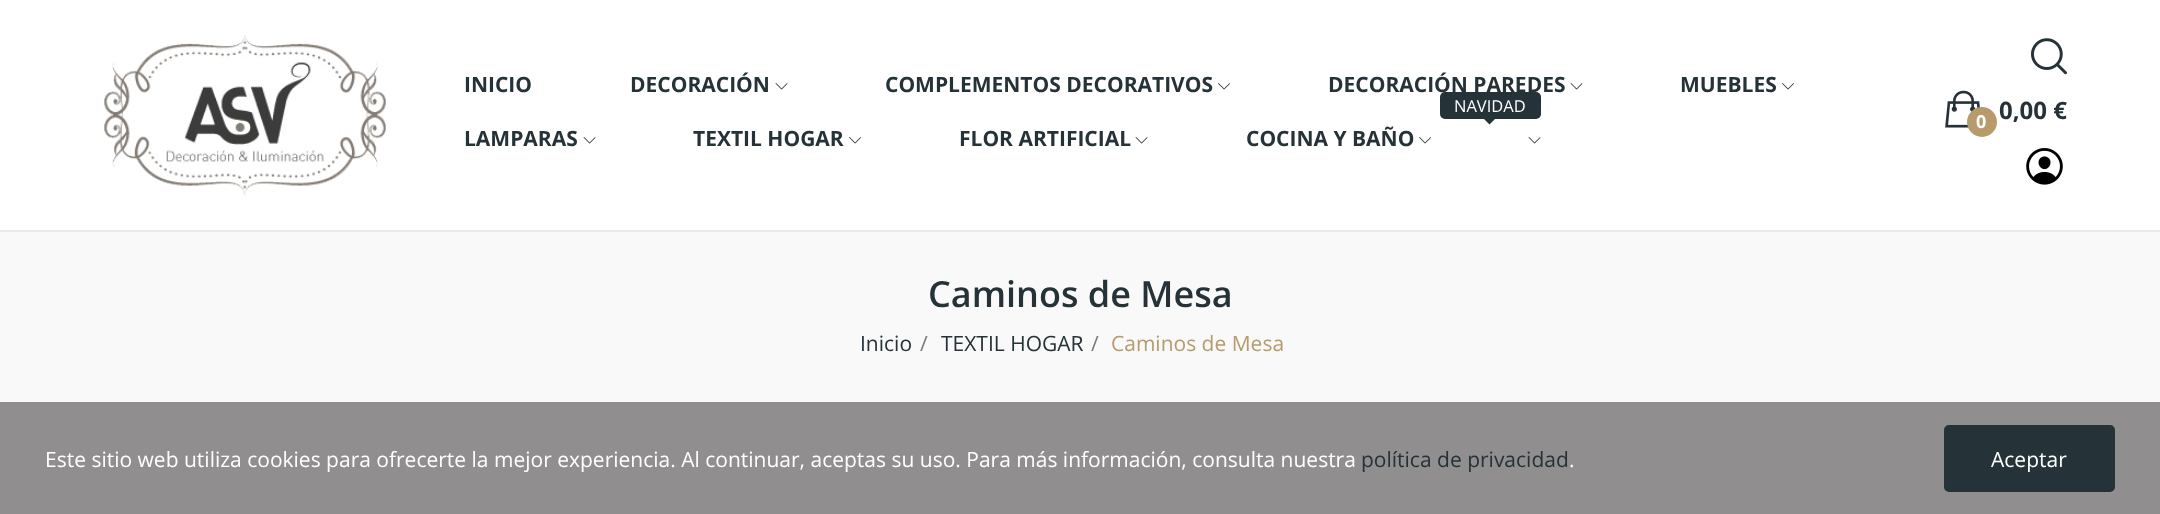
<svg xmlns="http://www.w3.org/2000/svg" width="2160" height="514">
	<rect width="100%" height="100%" fill="#FFFFFF" />
	<rect x="0" y="230" width="2160" height="2" fill="#EBEBEB" />
	<image x="104" y="35" width="282" height="161" href="assets/img1.png" />
	<g font-family="Open Sans" font-size="21" font-weight="700" fill="#253237">
		<text x="464" y="92">INICIO</text>
		<text x="630" y="92">DECORACIÓN</text>
	</g>
	<image x="775" y="83" width="13" height="7" href="assets/img2.png" />
	<text x="885" y="92" font-family="Open Sans" font-size="21" font-weight="700" fill="#253237">COMPLEMENTOS DECORATIVOS</text>
	<image x="1218" y="83" width="12" height="7" href="assets/img3.png" />
	<text x="1328" y="92" font-family="Open Sans" font-size="21" font-weight="700" fill="#253237">DECORACIÓN PAREDES</text>
	<image x="1570" y="83" width="13" height="7" href="assets/img2.png" />
	<text x="1680" y="92" font-family="Open Sans" font-size="21" font-weight="700" fill="#253237">MUEBLES</text>
	<image x="1782" y="83" width="12" height="7" href="assets/img3.png" />
	<rect x="1440" y="92" width="101" height="27" rx="5" fill="#253237" />
	<text x="1454" y="112" font-family="Open Sans" font-size="16.5" fill="#FFFFFF">NAVIDAD</text>
	<path d="M1483.5 118.5H1495.5L1489.5 124.5Z" fill="#253237" />
	<image x="1528" y="137" width="13" height="7" href="assets/img2.png" />
	<text x="464" y="146" font-family="Open Sans" font-size="21" font-weight="700" fill="#253237">LAMPARAS</text>
	<image x="583" y="137" width="13" height="7" href="assets/img2.png" />
	<text x="693" y="146" font-family="Open Sans" font-size="21" font-weight="700" fill="#253237">TEXTIL HOGAR</text>
	<image x="849" y="137" width="12" height="7" href="assets/img3.png" />
	<text x="959" y="146" font-family="Open Sans" font-size="21" font-weight="700" fill="#253237">FLOR ARTIFICIAL</text>
	<image x="1135" y="137" width="13" height="7" href="assets/img2.png" />
	<text x="1246" y="146" font-family="Open Sans" font-size="21" font-weight="700" fill="#253237">COCINA Y BAÑO</text>
	<image x="1419" y="137" width="12" height="7" href="assets/img3.png" />
	<image x="2031" y="38" width="36" height="37" href="assets/img4.png" />
	<image x="1945" y="90" width="35" height="38" href="assets/img5.png" />
	<circle cx="1982" cy="122" r="15" fill="#B79B6C" />
	<text x="1976" y="128" font-family="Open Sans" font-size="18" font-weight="700" fill="#FFFFFF">0</text>
	<text x="1999" y="119" font-family="Open Sans" font-size="24" font-weight="700" fill="#253237">0,00 €</text>
	<image x="2026" y="148" width="37" height="37" href="assets/img6.png" />
	<rect x="0" y="232" width="2160" height="170" fill="#F9F9F9" />
	<text x="928" y="307" font-family="Open Sans" font-size="36" font-weight="600" fill="#253237">Caminos de Mesa</text>
	<text x="860" y="351" font-family="Open Sans" font-size="21" fill="#253237">Inicio</text>
	<text x="920" y="351" font-family="Open Sans" font-size="21" fill="#7A7A7A">/</text>
	<text x="941" y="351" font-family="Open Sans" font-size="21" fill="#253237">TEXTIL HOGAR</text>
	<text x="1091" y="351" font-family="Open Sans" font-size="21" fill="#7A7A7A">/</text>
	<text x="1111" y="351" font-family="Open Sans" font-size="21" fill="#B79B6C">Caminos de Mesa</text>
	<rect x="0" y="402" width="2160" height="112" fill="#908E8F" />
	<text x="45" y="467" font-family="Open Sans" font-size="21" fill="#FFFFFF">Este sitio web utiliza cookies para ofrecerte la mejor experiencia. Al continuar, aceptas su uso. Para más información, consulta nuestra</text>
	<text x="1361" y="467" font-family="Open Sans" font-size="21" fill="#253237">política de privacidad</text>
	<text x="1569" y="467" font-family="Open Sans" font-size="21" fill="#FFFFFF">.</text>
	<rect x="1945.5" y="426.5" width="168" height="64" rx="3.5" fill="#253237" stroke="#253237" stroke-width="3" />
	<text x="1991" y="467" font-family="Open Sans" font-size="21" fill="#FFFFFF">Aceptar</text>
</svg>
